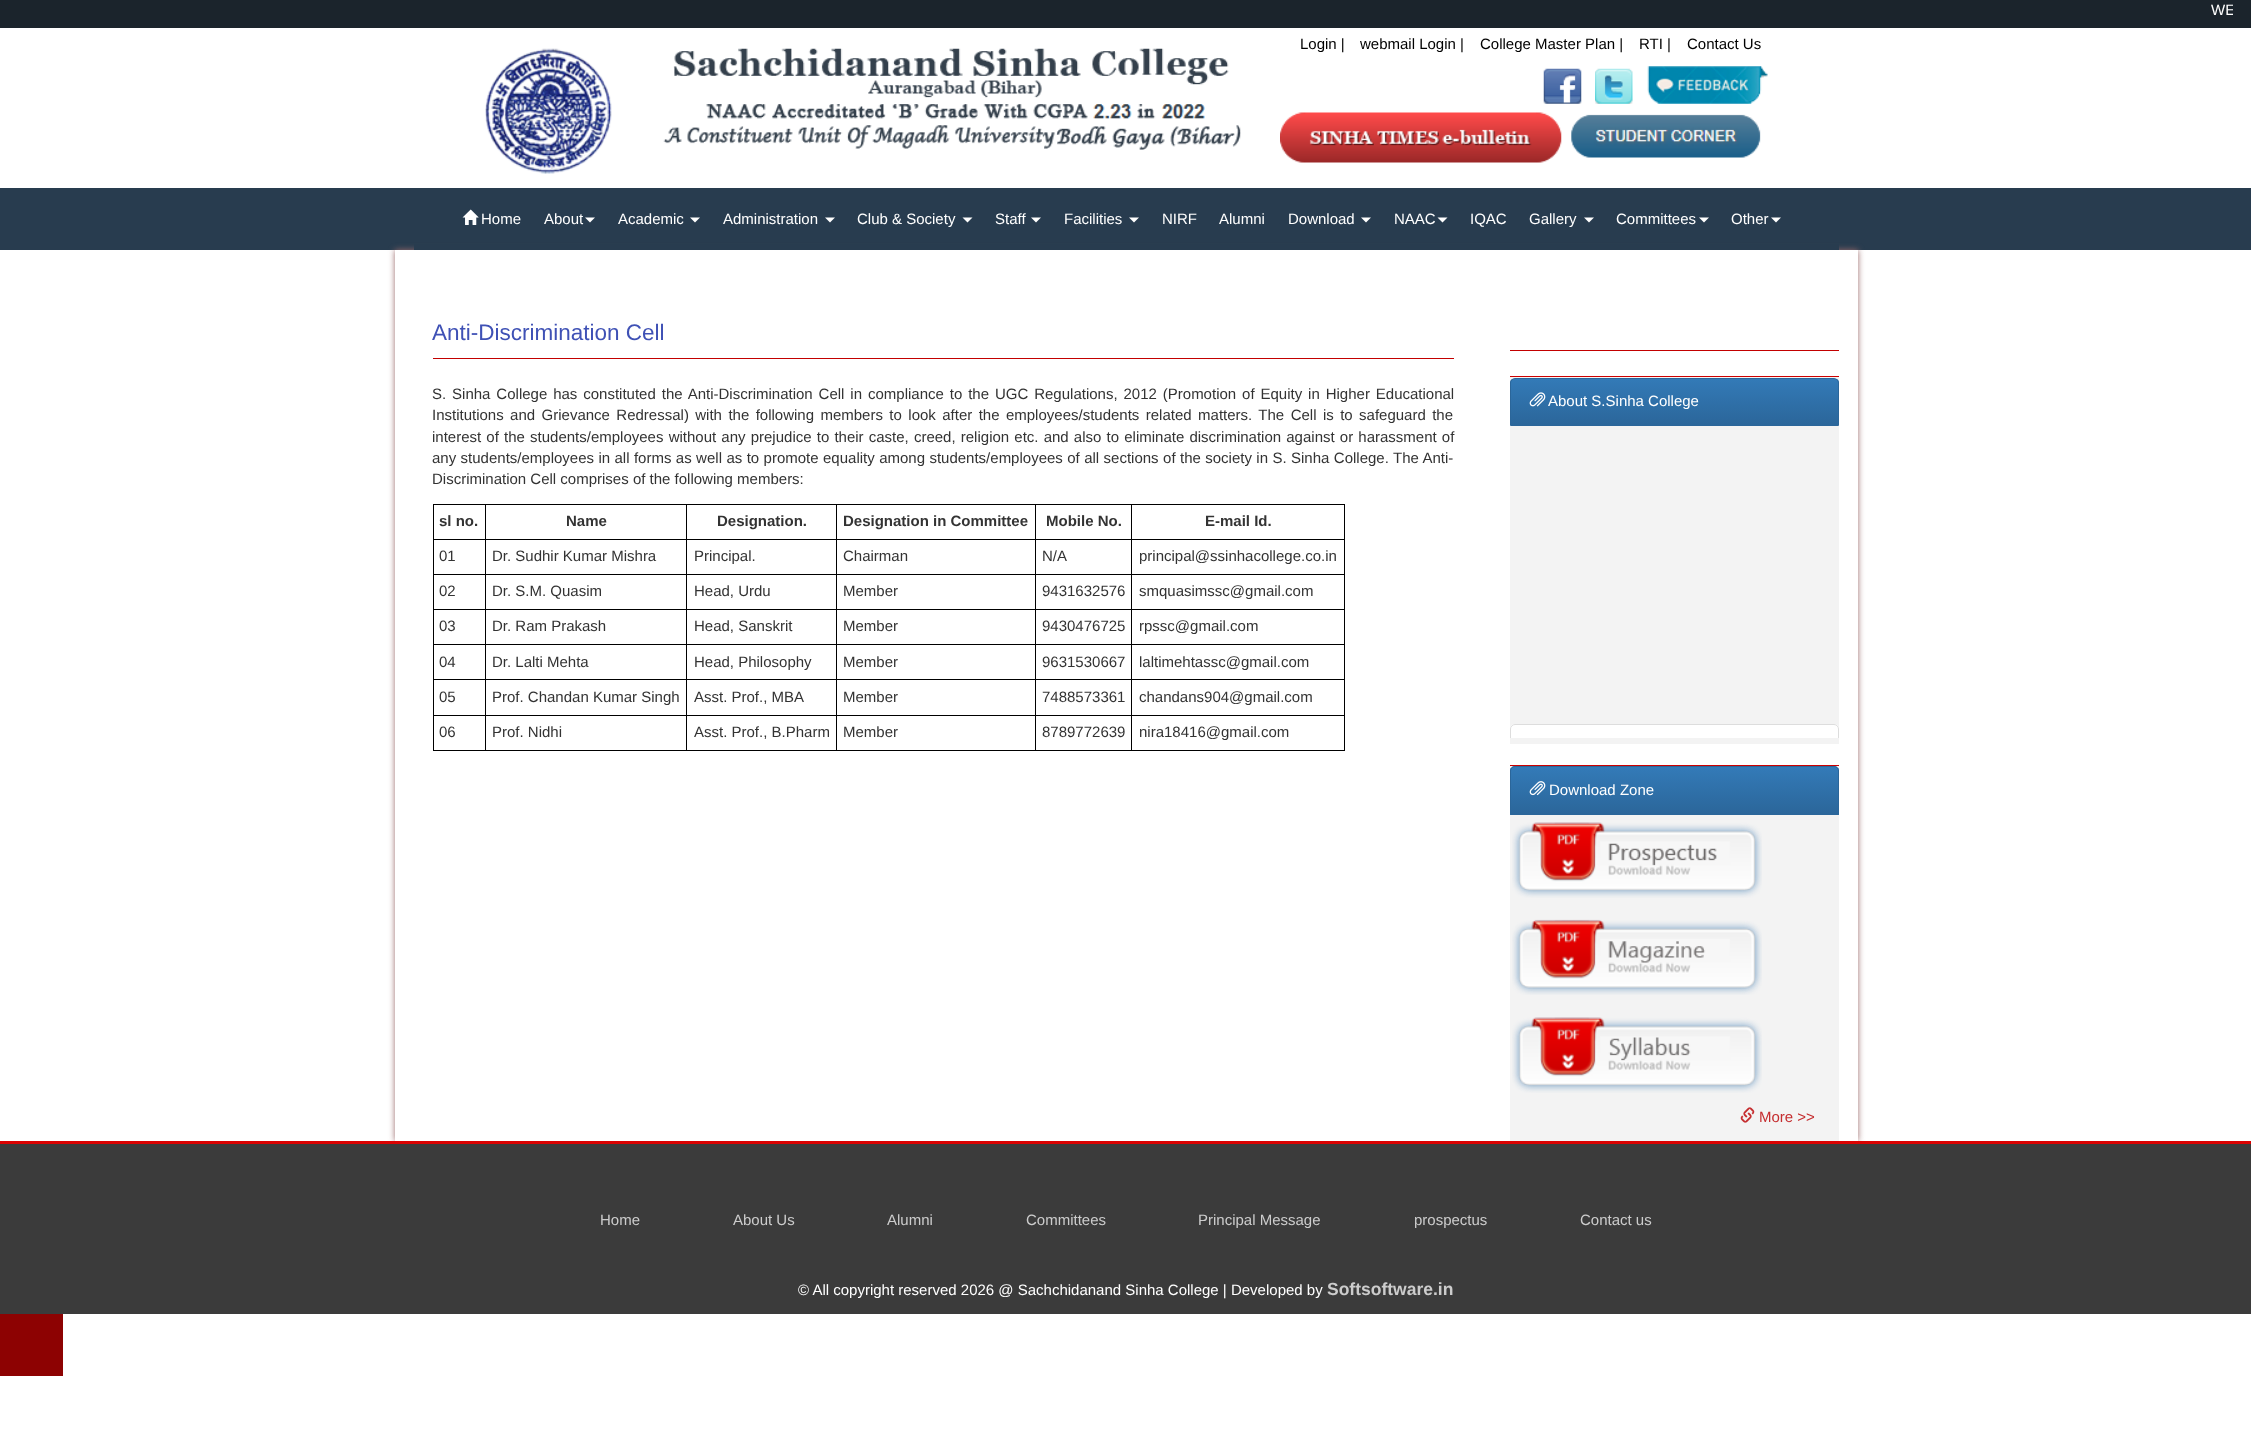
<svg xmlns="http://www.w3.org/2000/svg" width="2251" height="1445">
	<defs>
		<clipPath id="clip1"><rect x="19" y="0" width="2214" height="21" /></clipPath>
		<clipPath id="clip2"><path d="M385 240H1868V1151H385ZM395 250H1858V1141H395Z" clip-rule="evenodd" /></clipPath>
		<clipPath id="clip3"><path d="M1515 378H1834C1837 378 1839 380 1839 383V426H1510V383C1510 380 1512 378 1515 378Z" /></clipPath>
		<linearGradient id="g1" gradientUnits="userSpaceOnUse" x1="1674" y1="379" x2="1674" y2="425"><stop offset="0" stop-color="#337AB7" /><stop offset="1" stop-color="#2B669A" /></linearGradient>
		<clipPath id="clip4"><rect x="1510" y="425" width="329" height="313" /></clipPath>
		<clipPath id="clip5"><path d="M1515 766H1834C1837 766 1839 768 1839 771V815H1510V771C1510 768 1512 766 1515 766Z" /></clipPath>
		<linearGradient id="g2" gradientUnits="userSpaceOnUse" x1="1674" y1="768" x2="1674" y2="814"><stop offset="0" stop-color="#337AB7" /><stop offset="1" stop-color="#2B669A" /></linearGradient>
	</defs>
	<rect width="100%" height="100%" fill="#FFFFFF" />
	<rect x="0" y="0" width="2251" height="28" fill="#1B242C" />
	<g clip-path="url(#clip1)">
		<text x="2211" y="15" font-family="Liberation Sans" font-size="15" fill="#FFFFFF">WE</text>
	</g>
	<g font-family="Liberation Sans" font-size="15" fill="#000000">
		<text x="1300" y="49">Login |</text>
		<text x="1360" y="49">webmail Login |</text>
		<text x="1480" y="49">College Master Plan |</text>
		<text x="1639" y="49">RTI |</text>
		<text x="1687" y="49">Contact Us</text>
	</g>
	<image x="1543" y="68" width="39" height="36" href="assets/img1.png" />
	<image x="1595" y="68" width="38" height="36" href="assets/img2.png" />
	<image x="1647" y="66" width="121" height="38" href="assets/img3.png" />
	<image x="1280" y="112" width="282" height="51" href="assets/img4.png" />
	<image x="1571" y="114" width="190" height="44" href="assets/img5.png" />
	<image x="485" y="48" width="127" height="126" href="assets/img6.png" />
	<image x="663" y="48" width="578" height="102" href="assets/img7.png" />
	<rect x="0" y="188" width="2251" height="62" fill="#283C4F" />
	<g clip-path="url(#clip2)">
		<rect x="395" y="250" width="1463" height="891" fill="#9A6A6A" filter="blur(3px)" />
	</g>
	<rect x="414" y="244" width="1425" height="6" fill="#283C4F" />
	<image x="462" y="209" width="17" height="16" href="assets/img8.png" />
	<g font-family="Liberation Sans" font-size="15" fill="#FFFFFF">
		<text x="481" y="224">Home</text>
		<text x="544" y="224">About</text>
	</g>
	<path d="M585 217.5H595L590 222.5Z" fill="#FFFFFF" />
	<text x="618" y="224" font-family="Liberation Sans" font-size="15" fill="#FFFFFF">Academic</text>
	<path d="M690 217.5H700L695 222.5Z" fill="#FFFFFF" />
	<text x="723" y="224" font-family="Liberation Sans" font-size="15" fill="#FFFFFF">Administration</text>
	<path d="M825 217.5H835L830 222.5Z" fill="#FFFFFF" />
	<text x="857" y="224" font-family="Liberation Sans" font-size="15" fill="#FFFFFF">Club &amp; Society</text>
	<path d="M962.5 217.5H972.5L967.5 222.5Z" fill="#FFFFFF" />
	<text x="995" y="224" font-family="Liberation Sans" font-size="15" fill="#FFFFFF">Staff</text>
	<path d="M1031 217.5H1041L1036 222.5Z" fill="#FFFFFF" />
	<text x="1064" y="224" font-family="Liberation Sans" font-size="15" fill="#FFFFFF">Facilities</text>
	<path d="M1129 217.5H1139L1134 222.5Z" fill="#FFFFFF" />
	<g font-family="Liberation Sans" font-size="15" fill="#FFFFFF">
		<text x="1162" y="224">NIRF</text>
		<text x="1219" y="224">Alumni</text>
		<text x="1288" y="224">Download</text>
	</g>
	<path d="M1361 217.5H1371L1366 222.5Z" fill="#FFFFFF" />
	<text x="1394" y="224" font-family="Liberation Sans" font-size="15" fill="#FFFFFF">NAAC</text>
	<path d="M1437.5 217.5H1447.5L1442.5 222.5Z" fill="#FFFFFF" />
	<g font-family="Liberation Sans" font-size="15" fill="#FFFFFF">
		<text x="1470" y="224">IQAC</text>
		<text x="1529" y="224">Gallery</text>
	</g>
	<path d="M1584 217.5H1594L1589 222.5Z" fill="#FFFFFF" />
	<text x="1616" y="224" font-family="Liberation Sans" font-size="15" fill="#FFFFFF">Committees</text>
	<path d="M1699 217.5H1709L1704 222.5Z" fill="#FFFFFF" />
	<text x="1731" y="224" font-family="Liberation Sans" font-size="15" fill="#FFFFFF">Other</text>
	<path d="M1771 217.5H1781L1776 222.5Z" fill="#FFFFFF" />
	<rect x="433" y="358" width="1021" height="1" fill="#C30000" />
	<text x="432" y="340" font-family="Liberation Sans" font-size="22.5" fill="#3F51B5">Anti-Discrimination Cell</text>
	<g font-family="Liberation Sans" font-size="15" fill="#333333">
		<text x="432" y="399" word-spacing="1.75">S. Sinha College has constituted the Anti-Discrimination Cell in compliance to the UGC Regulations, 2012 (Promotion of Equity in Higher Educational</text>
		<text x="432" y="420" word-spacing="2.25">Institutions and Grievance Redressal) with the following members to look after the employees/students related matters. The Cell is to safeguard the</text>
		<text x="432" y="442" word-spacing="1">interest of the students/employees without any prejudice to their caste, creed, religion etc. and also to eliminate discrimination against or harassment of</text>
		<text x="432" y="463" word-spacing="0.25">any students/employees in all forms as well as to promote equality among students/employees of all sections of the society in S. Sinha College. The Anti-</text>
		<text x="432" y="484">Discrimination Cell comprises of the following members:</text>
	</g>
	<rect x="433" y="504" width="912" height="1" fill="#000000" />
	<rect x="1344" y="504" width="1" height="247" fill="#000000" />
	<rect x="433" y="750" width="912" height="1" fill="#000000" />
	<rect x="433" y="504" width="1" height="247" fill="#000000" />
	<text x="439" y="526" font-family="Liberation Sans" font-size="15" font-weight="700" fill="#333333">sl no.</text>
	<rect x="1131" y="539" width="214" height="1" fill="#000000" />
	<rect x="1131" y="574" width="214" height="1" fill="#000000" />
	<rect x="1131" y="609" width="214" height="1" fill="#000000" />
	<rect x="1131" y="644" width="214" height="1" fill="#000000" />
	<rect x="1131" y="679" width="214" height="1" fill="#000000" />
	<rect x="1131" y="715" width="214" height="1" fill="#000000" />
	<rect x="1131" y="715" width="1" height="36" fill="#000000" />
	<rect x="1035" y="715" width="98" height="1" fill="#000000" />
	<rect x="1131" y="679" width="1" height="37" fill="#000000" />
	<rect x="1035" y="679" width="98" height="1" fill="#000000" />
	<rect x="1131" y="644" width="1" height="36" fill="#000000" />
	<rect x="1035" y="644" width="98" height="1" fill="#000000" />
	<rect x="1131" y="609" width="1" height="36" fill="#000000" />
	<rect x="1035" y="609" width="98" height="1" fill="#000000" />
	<rect x="1131" y="574" width="1" height="36" fill="#000000" />
	<rect x="1035" y="574" width="98" height="1" fill="#000000" />
	<rect x="1131" y="539" width="1" height="36" fill="#000000" />
	<rect x="1035" y="539" width="98" height="1" fill="#000000" />
	<rect x="1035" y="715" width="1" height="36" fill="#000000" />
	<rect x="836" y="715" width="200" height="1" fill="#000000" />
	<rect x="1035" y="679" width="1" height="37" fill="#000000" />
	<rect x="836" y="679" width="200" height="1" fill="#000000" />
	<rect x="1035" y="644" width="1" height="36" fill="#000000" />
	<rect x="836" y="644" width="200" height="1" fill="#000000" />
	<rect x="1035" y="609" width="1" height="36" fill="#000000" />
	<rect x="836" y="609" width="200" height="1" fill="#000000" />
	<rect x="1035" y="574" width="1" height="36" fill="#000000" />
	<rect x="836" y="574" width="200" height="1" fill="#000000" />
	<rect x="1035" y="539" width="1" height="36" fill="#000000" />
	<rect x="836" y="539" width="200" height="1" fill="#000000" />
	<rect x="836" y="715" width="1" height="36" fill="#000000" />
	<rect x="686" y="715" width="152" height="1" fill="#000000" />
	<rect x="836" y="679" width="1" height="37" fill="#000000" />
	<rect x="686" y="679" width="152" height="1" fill="#000000" />
	<rect x="836" y="644" width="1" height="36" fill="#000000" />
	<rect x="686" y="644" width="152" height="1" fill="#000000" />
	<rect x="836" y="609" width="1" height="36" fill="#000000" />
	<rect x="686" y="609" width="152" height="1" fill="#000000" />
	<rect x="836" y="574" width="1" height="36" fill="#000000" />
	<rect x="686" y="574" width="152" height="1" fill="#000000" />
	<rect x="836" y="539" width="1" height="36" fill="#000000" />
	<rect x="686" y="539" width="152" height="1" fill="#000000" />
	<rect x="686" y="715" width="1" height="36" fill="#000000" />
	<rect x="485" y="715" width="203" height="1" fill="#000000" />
	<rect x="686" y="679" width="1" height="37" fill="#000000" />
	<rect x="485" y="679" width="203" height="1" fill="#000000" />
	<rect x="686" y="644" width="1" height="36" fill="#000000" />
	<rect x="485" y="644" width="203" height="1" fill="#000000" />
	<rect x="686" y="609" width="1" height="36" fill="#000000" />
	<rect x="485" y="609" width="203" height="1" fill="#000000" />
	<rect x="686" y="574" width="1" height="36" fill="#000000" />
	<rect x="485" y="574" width="203" height="1" fill="#000000" />
	<rect x="686" y="539" width="1" height="36" fill="#000000" />
	<rect x="485" y="539" width="203" height="1" fill="#000000" />
	<rect x="485" y="715" width="1" height="36" fill="#000000" />
	<rect x="433" y="715" width="53" height="1" fill="#000000" />
	<rect x="485" y="679" width="1" height="37" fill="#000000" />
	<rect x="433" y="679" width="53" height="1" fill="#000000" />
	<rect x="485" y="644" width="1" height="36" fill="#000000" />
	<rect x="433" y="644" width="53" height="1" fill="#000000" />
	<rect x="485" y="609" width="1" height="36" fill="#000000" />
	<rect x="433" y="609" width="53" height="1" fill="#000000" />
	<rect x="485" y="574" width="1" height="36" fill="#000000" />
	<rect x="433" y="574" width="53" height="1" fill="#000000" />
	<rect x="485" y="539" width="1" height="36" fill="#000000" />
	<rect x="433" y="539" width="53" height="1" fill="#000000" />
	<rect x="485" y="504" width="1" height="36" fill="#000000" />
	<text x="566" y="526" font-family="Liberation Sans" font-size="15" font-weight="700" fill="#333333">Name</text>
	<rect x="686" y="504" width="1" height="36" fill="#000000" />
	<text x="717" y="526" font-family="Liberation Sans" font-size="15" font-weight="700" fill="#333333">Designation.</text>
	<rect x="836" y="504" width="1" height="36" fill="#000000" />
	<text x="843" y="526" font-family="Liberation Sans" font-size="15" font-weight="700" fill="#333333">Designation in Committee</text>
	<rect x="1035" y="504" width="1" height="36" fill="#000000" />
	<text x="1046" y="526" font-family="Liberation Sans" font-size="15" font-weight="700" fill="#333333">Mobile No.</text>
	<rect x="1131" y="504" width="1" height="36" fill="#000000" />
	<text x="1205" y="526" font-family="Liberation Sans" font-size="15" font-weight="700" fill="#333333">E-mail Id.</text>
	<g font-family="Liberation Sans" font-size="15" fill="#333333">
		<text x="439" y="561">01</text>
		<text x="492" y="561">Dr. Sudhir Kumar Mishra</text>
		<text x="694" y="561">Principal.</text>
		<text x="843" y="561">Chairman</text>
		<text x="1042" y="561">N/A</text>
		<text x="1139" y="561">principal@ssinhacollege.co.in</text>
		<text x="439" y="596">02</text>
		<text x="492" y="596">Dr. S.M. Quasim</text>
		<text x="694" y="596">Head, Urdu</text>
		<text x="843" y="596">Member</text>
		<text x="1042" y="596">9431632576</text>
		<text x="1139" y="596">smquasimssc@gmail.com</text>
		<text x="439" y="631">03</text>
		<text x="492" y="631">Dr. Ram Prakash</text>
		<text x="694" y="631">Head, Sanskrit</text>
		<text x="843" y="631">Member</text>
		<text x="1042" y="631">9430476725</text>
		<text x="1139" y="631">rpssc@gmail.com</text>
		<text x="439" y="667">04</text>
		<text x="492" y="667">Dr. Lalti Mehta</text>
		<text x="694" y="667">Head, Philosophy</text>
		<text x="843" y="667">Member</text>
		<text x="1042" y="667">9631530667</text>
		<text x="1139" y="667">laltimehtassc@gmail.com</text>
		<text x="439" y="702">05</text>
		<text x="492" y="702">Prof. Chandan Kumar Singh</text>
		<text x="694" y="702">Asst. Prof., MBA</text>
		<text x="843" y="702">Member</text>
		<text x="1042" y="702">7488573361</text>
		<text x="1139" y="702">chandans904@gmail.com</text>
		<text x="439" y="737">06</text>
		<text x="492" y="737">Prof. Nidhi</text>
		<text x="694" y="737">Asst. Prof., B.Pharm</text>
		<text x="843" y="737">Member</text>
		<text x="1042" y="737">8789772639</text>
		<text x="1139" y="737">nira18416@gmail.com</text>
	</g>
	<rect x="1510" y="350" width="329" height="1" fill="#C30000" />
	<rect x="1510" y="377" width="329" height="367" fill="#F3F3F3" />
	<rect x="1510" y="376" width="329" height="1" fill="#CC0000" />
	<g clip-path="url(#clip3)">
		<rect x="1510" y="379" width="329" height="46" fill="url(#g1)" />
	</g>
	<path d="M1515 378.5H1834C1836.5 378.5 1838.5 380.5 1838.5 383V425.5H1510.5V383C1510.5 380.5 1512.5 378.5 1515 378.5Z" fill="none" stroke="#2B669A" />
	<image x="1529" y="392" width="17" height="15" href="assets/img9.png" />
	<text x="1548" y="406" font-family="Liberation Sans" font-size="15" fill="#FFFFFF">About S.Sinha College</text>
	<path d="M1515 724H1834C1837 724 1839 726 1839 729V738H1510V729C1510 726 1512 724 1515 724Z" fill="#FFFFFF" />
	<g clip-path="url(#clip4)">
		<path d="M1515 724.5H1834C1836.5 724.5 1838.5 726.5 1838.5 729V772.5H1510.5V729C1510.5 726.5 1512.5 724.5 1515 724.5Z" fill="none" stroke="#DDDDDD" />
	</g>
	<rect x="1510" y="766" width="329" height="375" fill="#F3F3F3" />
	<rect x="1510" y="765" width="329" height="1" fill="#CC0000" />
	<path d="M1515 766H1834C1837 766 1839 768 1839 771V815H1510V771C1510 768 1512 766 1515 766Z" fill="#337AB7" />
	<g clip-path="url(#clip5)">
		<rect x="1510" y="768" width="329" height="46" fill="url(#g2)" />
	</g>
	<path d="M1515 766.5H1834C1836.5 766.5 1838.5 768.5 1838.5 771V814.5H1510.5V771C1510.5 768.5 1512.5 766.5 1515 766.5Z" fill="none" stroke="#2B669A" />
	<image x="1529" y="781" width="17" height="15" href="assets/img10.png" />
	<text x="1549" y="795" font-family="Liberation Sans" font-size="15" fill="#FFFFFF">Download Zone</text>
	<image x="1512" y="822" width="250" height="76" href="assets/img11.png" />
	<image x="1512" y="919" width="250" height="76" href="assets/img12.png" />
	<image x="1512" y="1017" width="250" height="76" href="assets/img13.png" />
	<image x="1740" y="1107" width="15" height="16" href="assets/img14.png" />
	<text x="1759" y="1122" font-family="Liberation Sans" font-size="15" fill="#C52D2F">More &gt;&gt;</text>
	<rect x="0" y="1144" width="2251" height="170" fill="#3B3B3B" />
	<rect x="0" y="1141" width="2251" height="3" fill="#DA0201" />
	<g font-family="Liberation Sans" font-size="15" fill="#CCCCCC">
		<text x="600" y="1225">Home</text>
		<text x="733" y="1225">About Us</text>
		<text x="887" y="1225">Alumni</text>
		<text x="1026" y="1225">Committees</text>
		<text x="1198" y="1225">Principal Message</text>
		<text x="1414" y="1225">prospectus</text>
		<text x="1580" y="1225">Contact us</text>
	</g>
	<text x="798" y="1295" font-family="Liberation Sans" font-size="15" fill="#FFFFFF">© All copyright reserved 2026 @ Sachchidanand Sinha College | Developed by</text>
	<text x="1327" y="1295" font-family="Liberation Sans" font-size="17.5" font-weight="700" fill="#CCCCCC">Softsoftware.in</text>
	<rect x="0" y="1314" width="63" height="62" fill="#8D0202" />
</svg>
